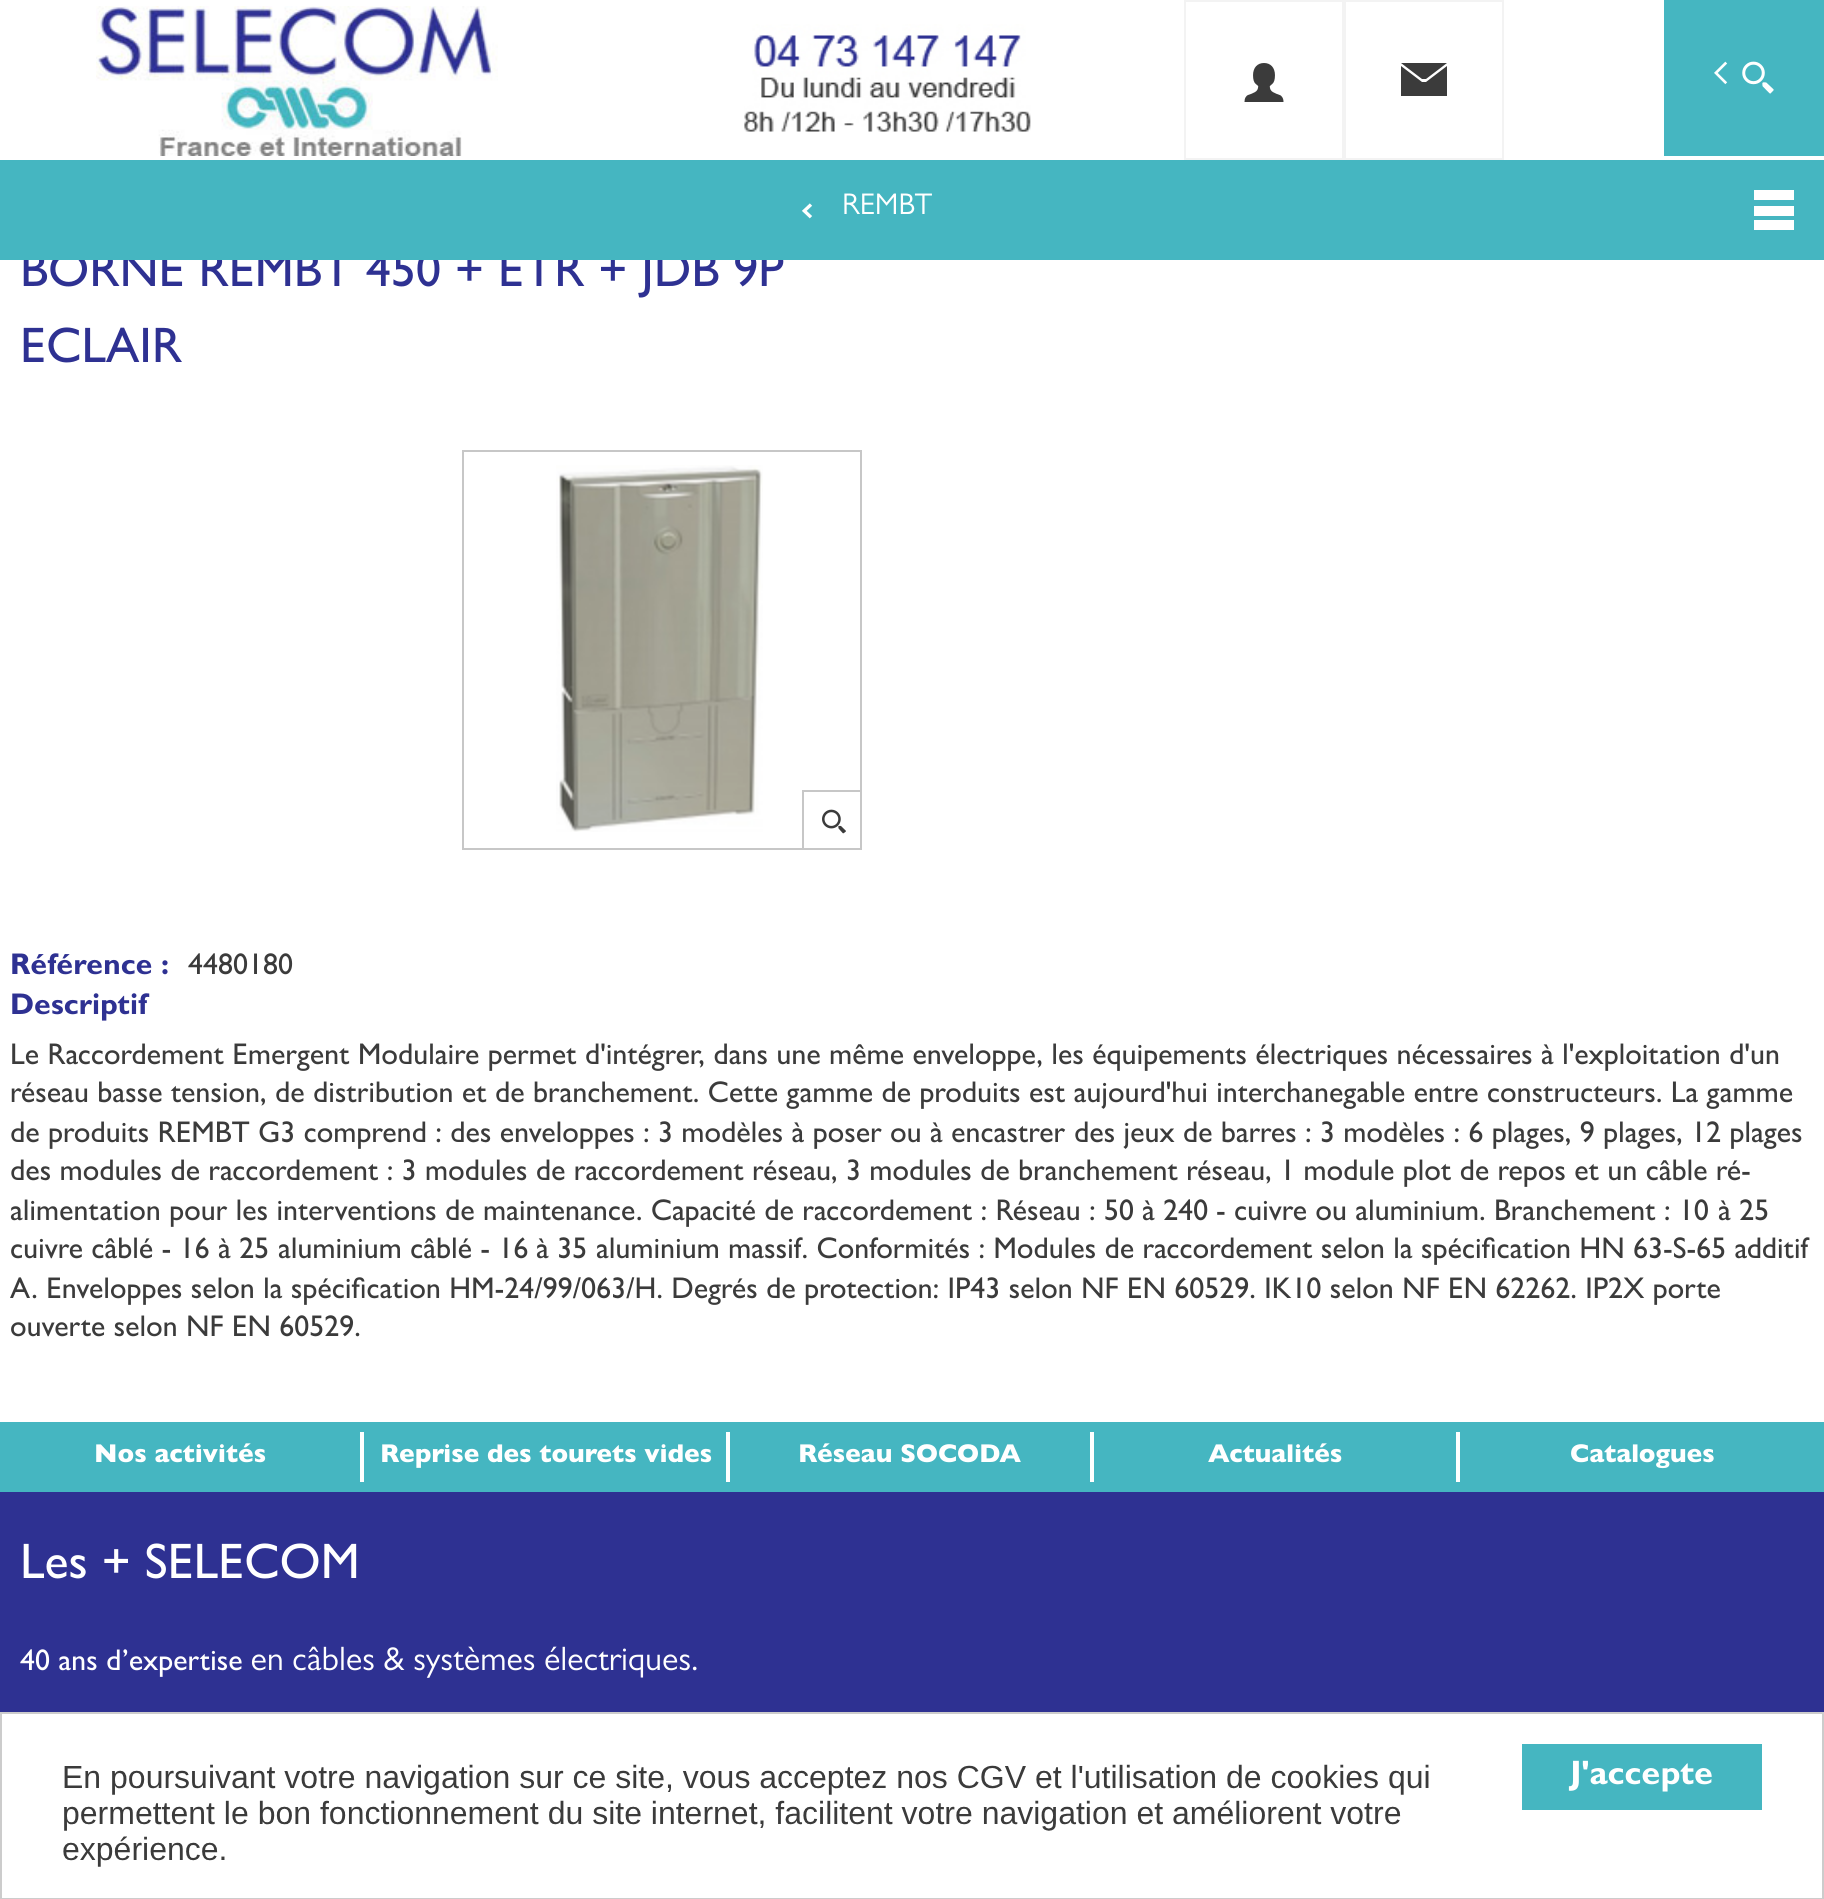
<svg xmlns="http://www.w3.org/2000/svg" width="1824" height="1899">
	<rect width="100%" height="100%" fill="#FFFFFF" />
	<image x="96" y="6" width="402" height="150" href="assets/img1.png" />
	<image x="744" y="24" width="287" height="108" href="assets/img2.png" />
	<rect x="1185" y="1" width="158" height="158" fill="none" stroke="#F3F3F3" stroke-width="2" />
	<image x="1244" y="63" width="40" height="39" href="assets/img3.png" />
	<rect x="1345" y="1" width="158" height="158" fill="none" stroke="#F3F3F3" stroke-width="2" />
	<path d="M1422 79L1401 63H1447L1426 79ZM1401 96V66L1422 82H1426L1447 66V96Z" fill="#3B3B3B" />
	<rect x="1664" y="0" width="160" height="156" fill="#45B6C1" />
	<image x="1714" y="61" width="60" height="33" href="assets/img4.png" />
	<rect x="0" y="160" width="1824" height="100" fill="#45B6C1" />
	<image x="801" y="203" width="12" height="16" href="assets/img5.png" />
	<image x="844" y="193" width="88" height="21" href="assets/img6.png" />
	<path d="M1754 190H1794V200H1754ZM1754 206H1794V216H1754ZM1754 230V220H1794V230Z" fill="#FFFFFF" />
	<image x="23" y="260" width="761" height="38" href="assets/img7.png" />
	<image x="23" y="327" width="159" height="36" href="assets/img8.png" />
	<rect x="463" y="451" width="398" height="398" fill="none" stroke="#C7C7C7" stroke-width="2" />
	<image x="556" y="465" width="207" height="367" href="assets/img9.png" />
	<rect x="802" y="790" width="60" height="2" fill="#C7C7C7" />
	<rect x="802" y="790" width="2" height="60" fill="#C7C7C7" />
	<image x="822" y="809" width="24" height="25" href="assets/img10.png" />
	<image x="12" y="953" width="156" height="22" href="assets/img11.png" />
	<image x="188" y="953" width="105" height="22" href="assets/img12.png" />
	<image x="12" y="993" width="138" height="28" href="assets/img13.png" />
	<image x="12" y="1043" width="1767" height="28" href="assets/img14.png" />
	<image x="11" y="1081" width="1782" height="28" href="assets/img15.png" />
	<image x="11" y="1121" width="1055" height="28" href="assets/img16.png" />
	<image x="1075" y="1121" width="727" height="28" href="assets/img17.png" />
	<image x="11" y="1159" width="1739" height="28" href="assets/img18.png" />
	<image x="10" y="1199" width="1123" height="28" href="assets/img19.png" />
	<image x="1142" y="1199" width="66" height="22" href="assets/img20.png" />
	<image x="1217" y="1199" width="491" height="22" href="assets/img21.png" />
	<image x="1718" y="1199" width="50" height="22" href="assets/img22.png" />
	<image x="11" y="1237" width="198" height="22" href="assets/img23.png" />
	<image x="218" y="1237" width="50" height="22" href="assets/img22.png" />
	<image x="278" y="1237" width="250" height="22" href="assets/img24.png" />
	<image x="536" y="1237" width="50" height="22" href="assets/img25.png" />
	<image x="596" y="1237" width="1214" height="28" href="assets/img26.png" />
	<image x="10" y="1277" width="1710" height="28" href="assets/img27.png" />
	<image x="11" y="1315" width="349" height="22" href="assets/img28.png" />
	<rect x="0" y="1422" width="1824" height="70" fill="#45B6C1" />
	<rect x="360" y="1432" width="4" height="50" fill="#FFFFFF" />
	<image x="96" y="1443" width="170" height="20" href="assets/img29.png" />
	<rect x="726" y="1432" width="4" height="50" fill="#FFFFFF" />
	<image x="382" y="1444" width="330" height="24" href="assets/img30.png" />
	<rect x="1090" y="1432" width="4" height="50" fill="#FFFFFF" />
	<image x="800" y="1443" width="221" height="20" href="assets/img31.png" />
	<rect x="1456" y="1432" width="4" height="50" fill="#FFFFFF" />
	<image x="1208" y="1443" width="134" height="20" href="assets/img32.png" />
	<image x="1571" y="1444" width="143" height="25" href="assets/img33.png" />
	<rect x="0" y="1492" width="1824" height="220" fill="#2E3192" />
	<image x="23" y="1543" width="334" height="36" href="assets/img34.png" />
	<image x="20" y="1649" width="222" height="28" href="assets/img35.png" />
	<image x="251" y="1646" width="446" height="32" href="assets/img36.png" />
	<rect x="1" y="1713" width="1822" height="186" fill="none" stroke="#CCCCCC" stroke-width="2" />
	<g font-family="Liberation Sans" font-size="32" fill="#3B3B3B">
		<text x="62" y="1788">En poursuivant votre navigation sur ce site, vous acceptez nos CGV et l'utilisation de cookies qui</text>
		<text x="62" y="1824">permettent le bon fonctionnement du site internet, facilitent votre navigation et améliorent votre</text>
		<text x="62" y="1860">expérience.</text>
	</g>
	<rect x="1522" y="1744" width="240" height="66" fill="#45B6C1" />
	<image x="1568" y="1760" width="144" height="32" href="assets/img37.png" />
</svg>
